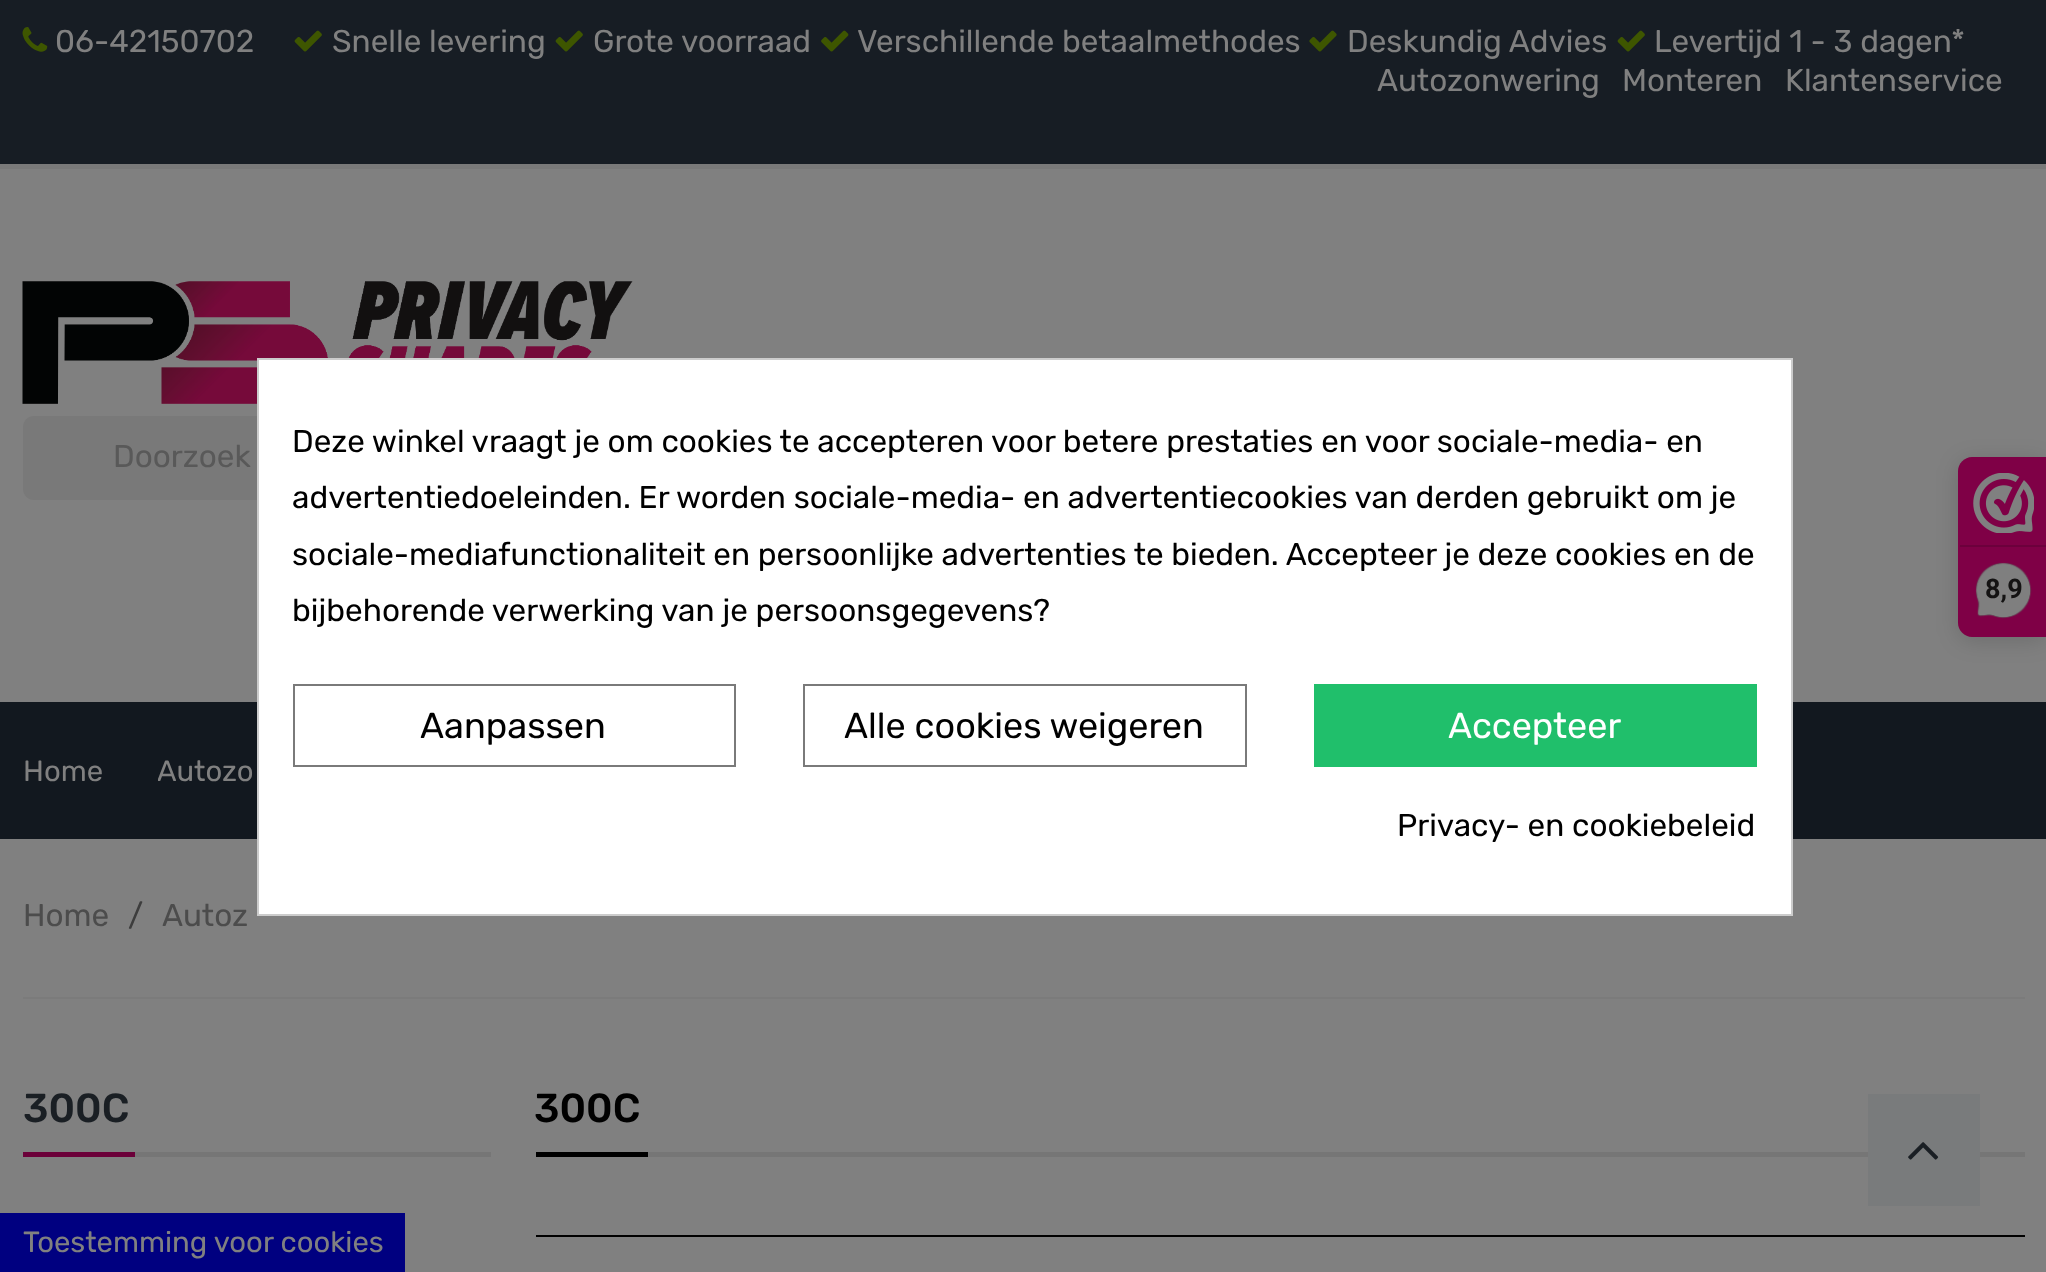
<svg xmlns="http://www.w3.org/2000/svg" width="2046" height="1272">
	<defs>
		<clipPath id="clip1"><rect x="158" y="704" width="207" height="135" /></clipPath>
	</defs>
	<rect width="100%" height="100%" fill="#808080" />
	<rect x="0" y="0" width="2046" height="164" fill="#171D24" />
	<rect x="0" y="164" width="2046" height="5" fill="#797979" />
	<image x="22" y="27" width="26" height="25" href="assets/img1.png" />
	<text x="55" y="52" font-family="Rubik" font-size="31.5" fill="#808080">06-42150702</text>
	<image x="294" y="30" width="28" height="22" href="assets/img2.png" />
	<text x="332" y="52" font-family="Rubik" font-size="31.5" fill="#808080">Snelle levering</text>
	<image x="555" y="30" width="28" height="22" href="assets/img2.png" />
	<text x="593" y="52" font-family="Rubik" font-size="31.5" fill="#808080">Grote voorraad</text>
	<image x="821" y="30" width="28" height="22" href="assets/img3.png" />
	<text x="857" y="52" font-family="Rubik" font-size="31.5" fill="#808080">Verschillende betaalmethodes</text>
	<image x="1309" y="30" width="28" height="22" href="assets/img4.png" />
	<text x="1347" y="52" font-family="Rubik" font-size="31.5" fill="#808080">Deskundig Advies</text>
	<image x="1617" y="30" width="28" height="22" href="assets/img2.png" />
	<g font-family="Rubik" font-size="31.5" fill="#808080">
		<text x="1654" y="52">Levertijd 1 - 3 dagen*</text>
		<text x="1377" y="91">Autozonwering</text>
		<text x="1622" y="91">Monteren</text>
		<text x="1785" y="91">Klantenservice</text>
	</g>
	<image x="22" y="281" width="611" height="123" href="assets/img5.png" />
	<rect x="23" y="416" width="1660" height="84" rx="11" fill="#797979" />
	<text x="113" y="467" font-family="Rubik" font-size="31.5" fill="#595959">Doorzoek</text>
	<rect x="0" y="702" width="2046" height="137" fill="#12181F" />
	<text x="23" y="781" font-family="Rubik" font-size="29.25" fill="#808080">Home</text>
	<g clip-path="url(#clip1)">
		<text x="157" y="781" font-family="Rubik" font-size="29.25" fill="#808080">Autozo</text>
	</g>
	<rect x="23" y="997" width="2002" height="2" fill="#7B7B7B" />
	<text x="23" y="926" font-family="Rubik" font-size="31.5" fill="#4C4C4C">Home</text>
	<text x="128" y="926" font-family="Rubik" font-size="31.5" fill="#3D3D3D">/</text>
	<text x="162" y="926" font-family="Rubik" font-size="31.5" fill="#4C4C4C">Autoz</text>
	<rect x="135" y="1152" width="356" height="5" fill="#767676" />
	<text x="23" y="1122" font-family="Rubik" font-size="40.5" font-weight="500" fill="#1A1F24">300C</text>
	<rect x="23" y="1152" width="112" height="5" fill="#6B0039" />
	<rect x="648" y="1152" width="1377" height="5" fill="#767676" />
	<text x="534" y="1122" font-family="Rubik" font-size="40.5" font-weight="500" fill="#000000">300C</text>
	<rect x="536" y="1152" width="112" height="5" fill="#000000" />
	<rect x="536" y="1235" width="1489" height="2" fill="#000000" />
	<rect x="258" y="359" width="1534" height="556" fill="#FFFFFF" stroke="#CCCCCC" stroke-width="2" />
	<g font-family="Rubik" font-size="31.5" fill="#000000">
		<text x="292" y="452">Deze winkel vraagt je om cookies te accepteren voor betere prestaties en voor sociale-media- en</text>
		<text x="292" y="508">advertentiedoeleinden. Er worden sociale-media- en advertentiecookies van derden gebruikt om je</text>
		<text x="292" y="565">sociale-mediafunctionaliteit en persoonlijke advertenties te bieden. Accepteer je deze cookies en de</text>
		<text x="292" y="621">bijbehorende verwerking van je persoonsgegevens?</text>
	</g>
	<rect x="294" y="685" width="441" height="81" fill="none" stroke="#7A7A7A" stroke-width="2" />
	<text x="420" y="738" font-family="Rubik" font-size="36" fill="#000000">Aanpassen</text>
	<rect x="804" y="685" width="442" height="81" fill="none" stroke="#7A7A7A" stroke-width="2" />
	<text x="844" y="738" font-family="Rubik" font-size="36" fill="#000000">Alle cookies weigeren</text>
	<rect x="1314" y="684" width="443" height="83" fill="#20BF6B" />
	<text x="1448" y="738" font-family="Rubik" font-size="36" fill="#FFFFFF">Accepteer</text>
	<text x="1397" y="836" font-family="Rubik" font-size="31.5" fill="#000000">Privacy- en cookiebeleid</text>
	<rect x="1958" y="461" width="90" height="180" rx="14" fill="#000000" fill-opacity="0.15" filter="blur(11px)" />
	<path d="M1972 457H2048V637H1972C1964.5 637 1958 630.5 1958 623V471C1958 463.5 1964.5 457 1972 457Z" fill="#7F0046" />
	<image x="1973" y="473" width="61" height="60" href="assets/img6.png" />
	<rect x="1960" y="545" width="86" height="2" fill="#6C003C" />
	<image x="1975" y="562" width="57" height="57" href="assets/img7.png" />
	<text x="1985" y="598" font-family="Roboto" font-size="27" font-weight="700" fill="#141313">8,9</text>
	<rect x="1868" y="1094" width="112" height="112" fill="#797B7C" />
	<image x="1908" y="1142" width="31" height="18" href="assets/img8.png" />
	<rect x="0" y="1213" width="405" height="59" fill="#000080" />
	<text x="23" y="1252" font-family="Rubik" font-size="29.25" fill="#808080">Toestemming voor cookies</text>
</svg>
